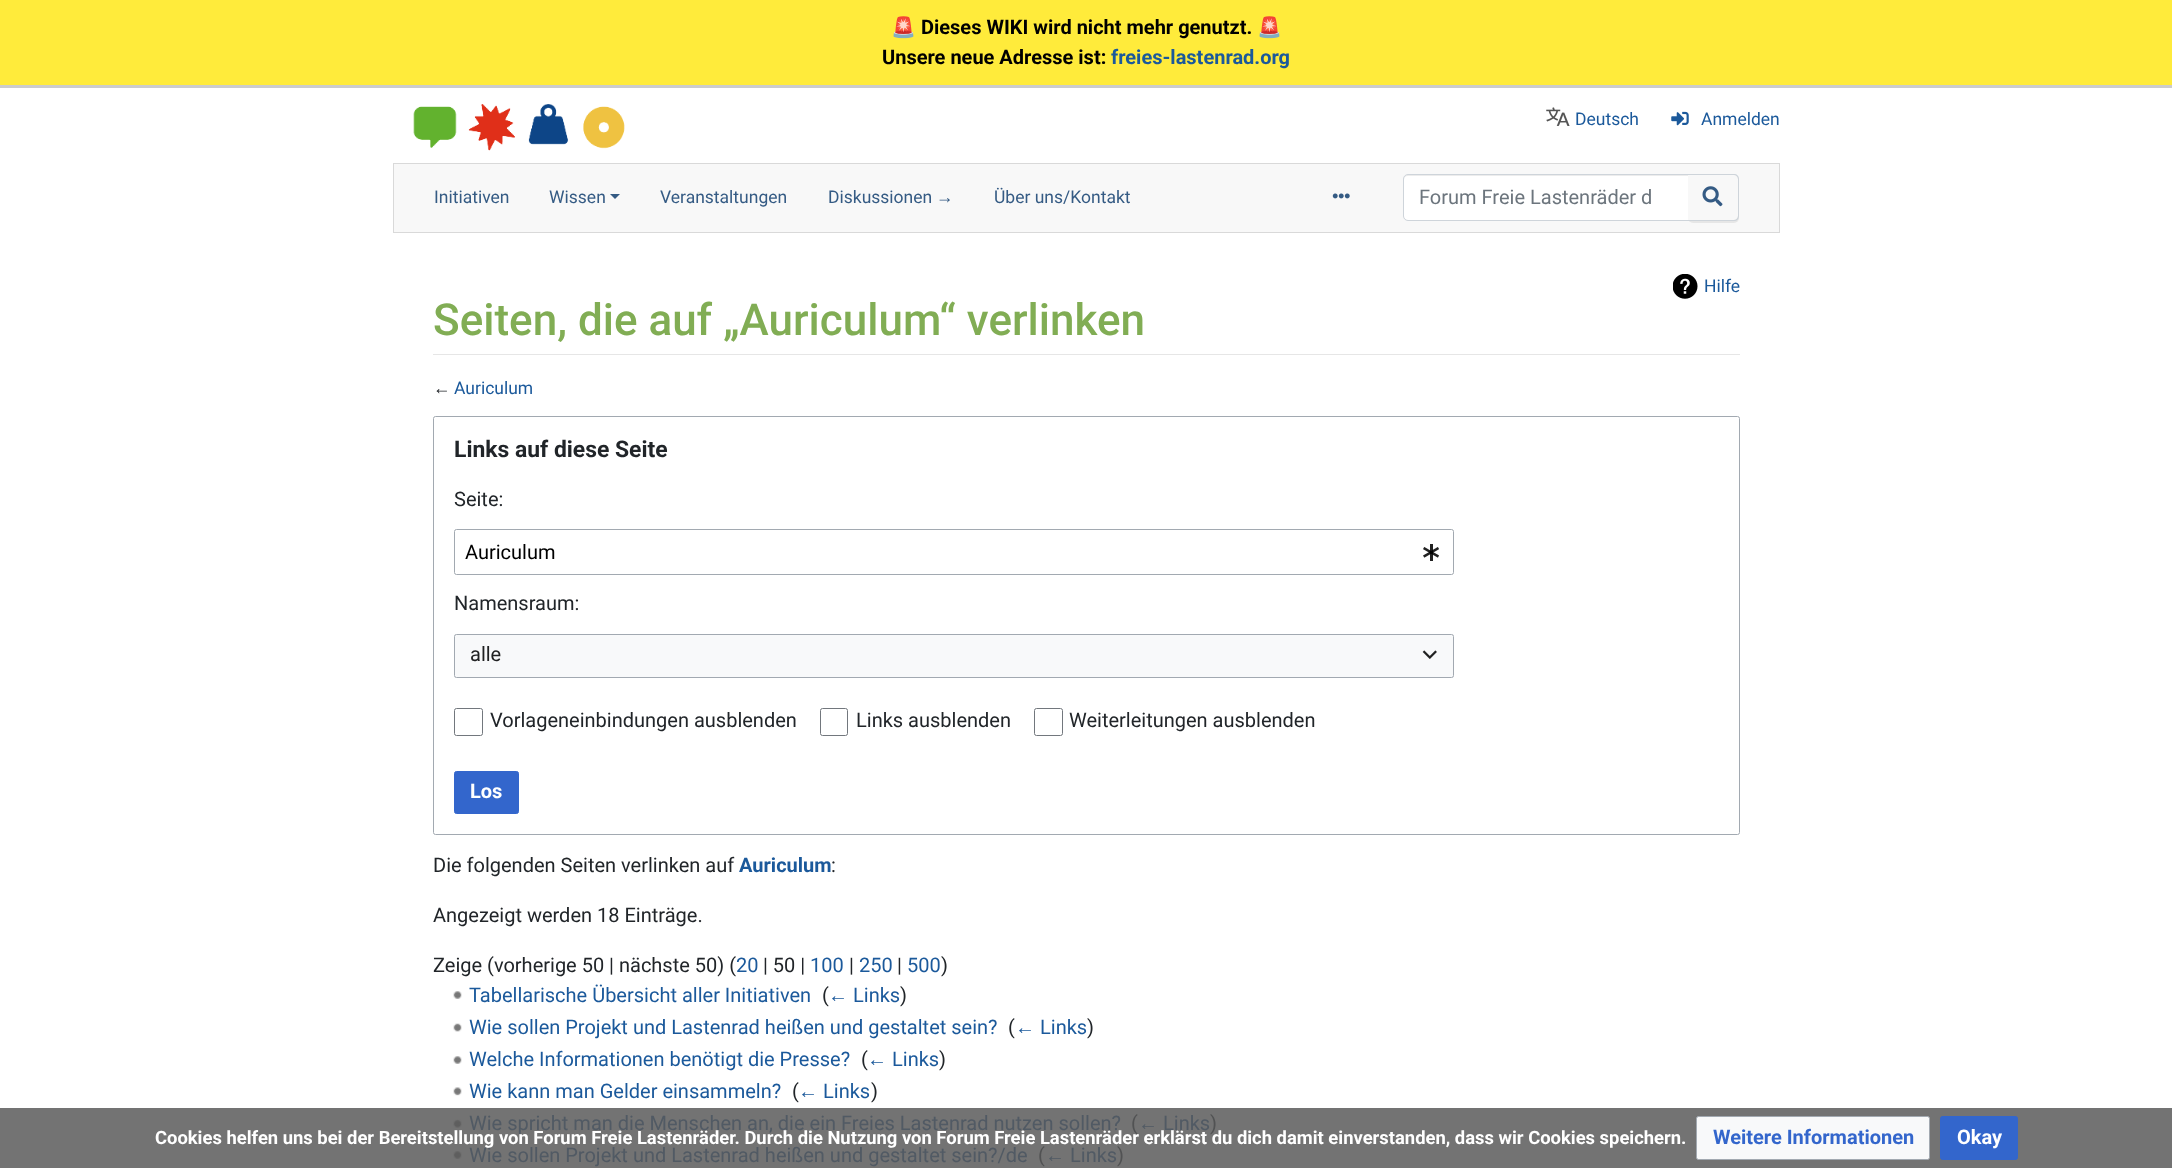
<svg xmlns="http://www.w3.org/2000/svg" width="2172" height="1168">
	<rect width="100%" height="100%" fill="#FFFFFF" />
	<rect x="0" y="1108" width="2172" height="60" fill="#737373" />
	<rect x="0" y="0" width="2172" height="85" fill="#FFEB3B" />
	<rect x="0" y="85" width="2172" height="3" fill="#CCCCCC" />
	<text x="891" y="34" font-family="Noto Color Emoji" font-size="20" font-weight="700" fill="#000000">🚨</text>
	<text x="921" y="34" font-family="Roboto" font-size="20" font-weight="700" fill="#000000">Dieses WIKI wird nicht mehr genutzt.</text>
	<text x="1257" y="34" font-family="Noto Color Emoji" font-size="20" font-weight="700" fill="#000000">🚨</text>
	<text x="882" y="64" font-family="Roboto" font-size="20" font-weight="700" fill="#000000">Unsere neue Adresse ist:</text>
	<text x="1111" y="64" font-family="Roboto" font-size="20" font-weight="700" fill="#1B599B">freies-lastenrad.org</text>
	<image x="413" y="104" width="212" height="47" href="assets/img1.png" />
	<image x="1546" y="107" width="24" height="19" href="assets/img2.png" />
	<text x="1575" y="125" font-family="Roboto" font-size="17.5" fill="#1B599B">Deutsch</text>
	<image x="1671" y="111" width="18" height="15" href="assets/img3.png" />
	<text x="1701" y="125" font-family="Roboto" font-size="17.5" fill="#1B599B">Anmelden</text>
	<rect x="393.5" y="163.5" width="1386" height="69" fill="#F8F8F8" stroke="#D9D9D9" />
	<g font-family="Roboto" font-size="17.5" fill="#355B84">
		<text x="434" y="203">Initiativen</text>
		<text x="549" y="203">Wissen</text>
	</g>
	<path d="M610 194H620L615 199Z" fill="#355B84" />
	<g font-family="Roboto" font-size="17.5" fill="#355B84">
		<text x="660" y="203">Veranstaltungen</text>
		<text x="828" y="203">Diskussionen</text>
	</g>
	<text x="936" y="203" font-family="Liberation Sans" font-size="17.5" fill="#355B84">→</text>
	<text x="994" y="203" font-family="Roboto" font-size="17.5" fill="#355B84">Über uns/Kontakt</text>
	<image x="1332" y="193" width="18" height="6" href="assets/img4.png" />
	<path d="M1408 175H1688V220H1408C1406 220 1404 218 1404 216V179C1404 177 1406 175 1408 175Z" fill="#FFFFFF" />
	<path d="M1408 176H1688V175H1408C1405 175 1404 177 1404 180C1404 178 1405 176 1408 176Z" fill="#ECECEC" />
	<path d="M1408 174.5H1688.5V220.5H1408C1405.5 220.5 1403.5 218.5 1403.5 216V179C1403.5 176.5 1405.5 174.5 1408 174.5Z" fill="none" stroke="#CED4DA" />
	<text x="1419" y="204" font-family="Roboto" font-size="20" fill="#6C757D">Forum Freie Lastenräder d</text>
	<rect x="1688" y="175" width="51" height="48" rx="5" fill="#000000" fill-opacity="0.07" filter="blur(0.5px)" />
	<path d="M1688 175H1734C1736 175 1738 177 1738 179V216C1738 218 1736 220 1734 220H1688Z" fill="#F8F8F8" />
	<path d="M1688 174H1734C1737 174 1739 176 1739 179V216C1739 219 1737 221 1734 221H1688ZM1688 175H1734C1736 175 1738 177 1738 179V216C1738 218 1736 220 1734 220H1688Z" fill="#CED4DA" fill-rule="evenodd" />
	<image x="1702" y="186" width="21" height="21" href="assets/img5.png" />
	<image x="1673" y="274" width="25" height="25" href="assets/img6.png" />
	<text x="1704" y="292" font-family="Roboto" font-size="17.5" fill="#1B599B">Hilfe</text>
	<rect x="433" y="354" width="1307" height="1" fill="#E6E6E6" />
	<text x="433" y="335" font-family="Roboto" font-size="44" font-weight="500" fill="#81AD54">Seiten, die auf „Auriculum“ verlinken</text>
	<text x="433" y="394" font-family="Liberation Sans" font-size="17.5" fill="#212529">←</text>
	<text x="454" y="394" font-family="Roboto" font-size="17.5" fill="#1B599B">Auriculum</text>
	<rect x="433.5" y="416.5" width="1306" height="418" rx="2" fill="none" stroke="#A2A9B1" />
	<text x="454" y="457" font-family="Roboto" font-size="22.9" font-weight="700" fill="#212529">Links auf diese Seite</text>
	<text x="454" y="506" font-family="Roboto" font-size="20" fill="#212529">Seite:</text>
	<rect x="454.5" y="529.5" width="999" height="45" rx="2" fill="none" stroke="#A2A9B1" />
	<text x="465" y="559" font-family="Roboto" font-size="20" fill="#000000">Auriculum</text>
	<image x="1423" y="544" width="16" height="17" href="assets/img7.png" />
	<text x="454" y="610" font-family="Roboto" font-size="20" fill="#212529">Namensraum:</text>
	<rect x="454" y="634" width="1000" height="44" fill="#F8F9FA" />
	<rect x="454.5" y="634.5" width="999" height="43" rx="2" fill="none" stroke="#A2A9B1" />
	<text x="470" y="661" font-family="Roboto" font-size="20" fill="#202122">alle</text>
	<image x="1422" y="650" width="15" height="9" href="assets/img8.png" />
	<rect x="454.5" y="708.5" width="28" height="27" rx="2" fill="none" stroke="#72777D" />
	<text x="490" y="727" font-family="Roboto" font-size="20" fill="#212529">Vorlageneinbindungen ausblenden</text>
	<rect x="820.5" y="708.5" width="27" height="27" rx="2" fill="none" stroke="#72777D" />
	<text x="856" y="727" font-family="Roboto" font-size="20" fill="#212529">Links ausblenden</text>
	<rect x="1034.5" y="708.5" width="28" height="27" rx="2" fill="none" stroke="#72777D" />
	<text x="1069" y="727" font-family="Roboto" font-size="20" fill="#212529">Weiterleitungen ausblenden</text>
	<rect x="454.5" y="771.5" width="64" height="42" rx="2" fill="#3366CC" stroke="#3366CC" />
	<text x="470" y="798" font-family="Roboto" font-size="20" font-weight="700" fill="#FFFFFF">Los</text>
	<text x="433" y="872" font-family="Roboto" font-size="20" fill="#212529">Die folgenden Seiten verlinken auf</text>
	<text x="739" y="872" font-family="Roboto" font-size="20" font-weight="700" fill="#1B599B">Auriculum</text>
	<g font-family="Roboto" font-size="20" fill="#212529">
		<text x="831" y="872">:</text>
		<text x="433" y="922">Angezeigt werden 18 Einträge.</text>
		<text x="433" y="972">Zeige (vorherige 50 | nächste 50) (</text>
	</g>
	<text x="736" y="972" font-family="Roboto" font-size="20" fill="#1B599B">20</text>
	<text x="763" y="972" font-family="Roboto" font-size="20" fill="#212529">| 50 |</text>
	<text x="810" y="972" font-family="Roboto" font-size="20" fill="#1B599B">100</text>
	<text x="849" y="972" font-family="Roboto" font-size="20" fill="#212529">|</text>
	<text x="859" y="972" font-family="Roboto" font-size="20" fill="#1B599B">250</text>
	<text x="897" y="972" font-family="Roboto" font-size="20" fill="#212529">|</text>
	<text x="907" y="972" font-family="Roboto" font-size="20" fill="#1B599B">500</text>
	<text x="941" y="972" font-family="Roboto" font-size="20" fill="#212529">)</text>
	<image x="453" y="991" width="9" height="8" href="assets/img9.png" />
	<text x="469" y="1002" font-family="Roboto" font-size="20" fill="#1B599B">Tabellarische Übersicht aller Initiativen</text>
	<text x="822" y="1002" font-family="Roboto" font-size="20" fill="#212529">(</text>
	<text x="828" y="1002" font-family="Liberation Sans" font-size="20" fill="#1B599B">←</text>
	<text x="853" y="1002" font-family="Roboto" font-size="20" fill="#1B599B">Links</text>
	<text x="900" y="1002" font-family="Roboto" font-size="20" fill="#212529">)</text>
	<image x="453" y="1023" width="9" height="9" href="assets/img10.png" />
	<text x="469" y="1034" font-family="Roboto" font-size="20" fill="#1B599B">Wie sollen Projekt und Lastenrad heißen und gestaltet sein?</text>
	<text x="1008" y="1034" font-family="Roboto" font-size="20" fill="#212529">(</text>
	<text x="1015" y="1034" font-family="Liberation Sans" font-size="20" fill="#1B599B">←</text>
	<text x="1040" y="1034" font-family="Roboto" font-size="20" fill="#1B599B">Links</text>
	<text x="1087" y="1034" font-family="Roboto" font-size="20" fill="#212529">)</text>
	<image x="453" y="1056" width="9" height="8" href="assets/img9.png" />
	<text x="469" y="1066" font-family="Roboto" font-size="20" fill="#1B599B">Welche Informationen benötigt die Presse?</text>
	<text x="861" y="1066" font-family="Roboto" font-size="20" fill="#212529">(</text>
	<text x="867" y="1066" font-family="Liberation Sans" font-size="20" fill="#1B599B">←</text>
	<text x="892" y="1066" font-family="Roboto" font-size="20" fill="#1B599B">Links</text>
	<text x="939" y="1066" font-family="Roboto" font-size="20" fill="#212529">)</text>
	<image x="453" y="1087" width="9" height="9" href="assets/img11.png" />
	<text x="469" y="1098" font-family="Roboto" font-size="20" fill="#1B599B">Wie kann man Gelder einsammeln?</text>
	<text x="792" y="1098" font-family="Roboto" font-size="20" fill="#212529">(</text>
	<text x="798" y="1098" font-family="Liberation Sans" font-size="20" fill="#1B599B">←</text>
	<text x="823" y="1098" font-family="Roboto" font-size="20" fill="#1B599B">Links</text>
	<text x="871" y="1098" font-family="Roboto" font-size="20" fill="#212529">)</text>
	<image x="453" y="1119" width="9" height="9" href="assets/img12.png" />
	<text x="469" y="1130" font-family="Roboto" font-size="20" fill="#515A64">Wie spricht man die Menschen an, die ein Freies Lastenrad nutzen sollen?</text>
	<text x="1131" y="1130" font-family="Roboto" font-size="20" fill="#515253">(</text>
	<text x="1138" y="1130" font-family="Liberation Sans" font-size="20" fill="#515A64">←</text>
	<text x="1163" y="1130" font-family="Roboto" font-size="20" fill="#515A64">Links</text>
	<text x="1210" y="1130" font-family="Roboto" font-size="20" fill="#515253">)</text>
	<image x="453" y="1151" width="9" height="8" href="assets/img13.png" />
	<text x="469" y="1162" font-family="Roboto" font-size="20" fill="#515A64">Wie sollen Projekt und Lastenrad heißen und gestaltet sein?/de</text>
	<text x="1038" y="1162" font-family="Roboto" font-size="20" fill="#515253">(</text>
	<text x="1045" y="1162" font-family="Liberation Sans" font-size="20" fill="#515A64">←</text>
	<text x="1070" y="1162" font-family="Roboto" font-size="20" fill="#515A64">Links</text>
	<text x="1117" y="1162" font-family="Roboto" font-size="20" fill="#515253">)</text>
	<text x="155" y="1144" font-family="Roboto" font-size="18.4" font-weight="700" fill="#FFFFFF">Cookies helfen uns bei der Bereitstellung von Forum Freie Lastenräder. Durch die Nutzung von Forum Freie Lastenräder erklärst du dich damit einverstanden, dass wir Cookies speichern.</text>
	<rect x="1696.5" y="1116.5" width="233" height="43" rx="2" fill="#F8F9FA" stroke="#A2A9B1" />
	<text x="1713" y="1144" font-family="Roboto" font-size="20" font-weight="700" fill="#3366CC">Weitere Informationen</text>
	<rect x="1940.5" y="1116.5" width="77" height="43" rx="2" fill="#3366CC" stroke="#3366CC" />
	<text x="1957" y="1144" font-family="Roboto" font-size="20" font-weight="700" fill="#FFFFFF">Okay</text>
</svg>
